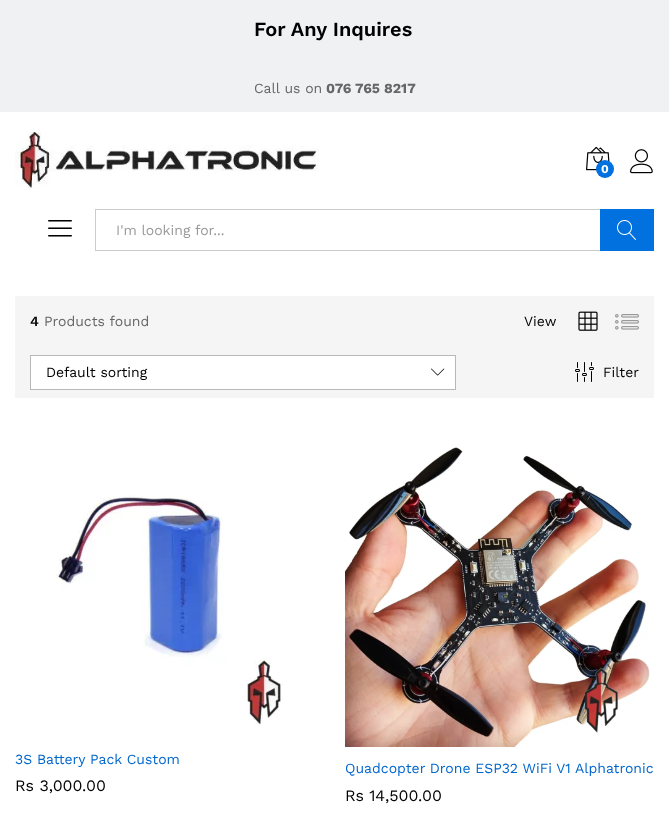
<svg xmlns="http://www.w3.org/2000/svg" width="669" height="840">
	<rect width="100%" height="100%" fill="#FFFFFF" />
	<rect x="0" y="0" width="669" height="112" fill="#EFF1F2" />
	<text x="254" y="36" font-family="Work Sans" font-size="20" font-weight="600" fill="#000000">For Any Inquires</text>
	<text x="254" y="93" font-family="Work Sans" font-size="14" fill="#666666">Call us on</text>
	<text x="326" y="93" font-family="Work Sans" font-size="14" font-weight="700" fill="#666666">076 765 8217</text>
	<image x="15" y="132" width="304" height="57" href="assets/img1.png" />
	<image x="586" y="146" width="24" height="25" href="assets/img2.png" />
	<circle cx="605" cy="169" r="9" fill="#0071DF" />
	<text x="601" y="173" font-family="Work Sans" font-size="12" font-weight="700" fill="#FFFFFF">0</text>
	<image x="630" y="149" width="23" height="25" href="assets/img3.png" />
	<image x="48" y="220" width="24" height="17" href="assets/img4.png" />
	<rect x="95" y="209" width="505" height="1" fill="#CCCCCC" />
	<rect x="95" y="250" width="505" height="1" fill="#CCCCCC" />
	<rect x="95" y="209" width="1" height="42" fill="#CCCCCC" />
	<text x="116" y="235" font-family="Work Sans" font-size="14" fill="#999999">I'm looking for...</text>
	<rect x="600" y="209" width="54" height="42" fill="#0071DF" />
	<image x="617" y="220" width="19" height="20" href="assets/img5.png" />
	<rect x="15" y="296" width="639" height="102" fill="#F5F5F5" />
	<text x="30" y="326" font-family="Work Sans" font-size="14" font-weight="600" fill="#000000">4</text>
	<text x="44" y="326" font-family="Work Sans" font-size="14" fill="#666666">Products found</text>
	<text x="524" y="326" font-family="Work Sans" font-size="14" fill="#000000">View</text>
	<image x="578" y="311" width="20" height="20" href="assets/img6.png" />
	<image x="615" y="314" width="24" height="16" href="assets/img7.png" />
	<rect x="30.5" y="355.5" width="425" height="34" fill="#FFFFFF" stroke="#B8B8B8" />
	<text x="46" y="377" font-family="Work Sans" font-size="14" fill="#000000">Default sorting</text>
	<image x="431" y="368" width="14" height="8" href="assets/img8.png" />
	<image x="575" y="362" width="19" height="20" href="assets/img9.png" />
	<text x="603" y="377" font-family="Work Sans" font-size="14" fill="#000000">Filter</text>
	<image x="55" y="495" width="228" height="231" href="assets/img10.png" />
	<text x="15" y="764" font-family="Work Sans" font-size="14" fill="#0066CC">3S Battery Pack Custom</text>
	<text x="15" y="791" font-family="Work Sans" font-size="16" fill="#000000">Rs 3,000.00</text>
	<image x="345" y="447" width="305" height="300" href="assets/img11.png" />
	<text x="345" y="773" font-family="Work Sans" font-size="14" fill="#0066CC">Quadcopter Drone ESP32 WiFi V1 Alphatronic</text>
	<text x="345" y="801" font-family="Work Sans" font-size="16" fill="#000000">Rs 14,500.00</text>
</svg>
